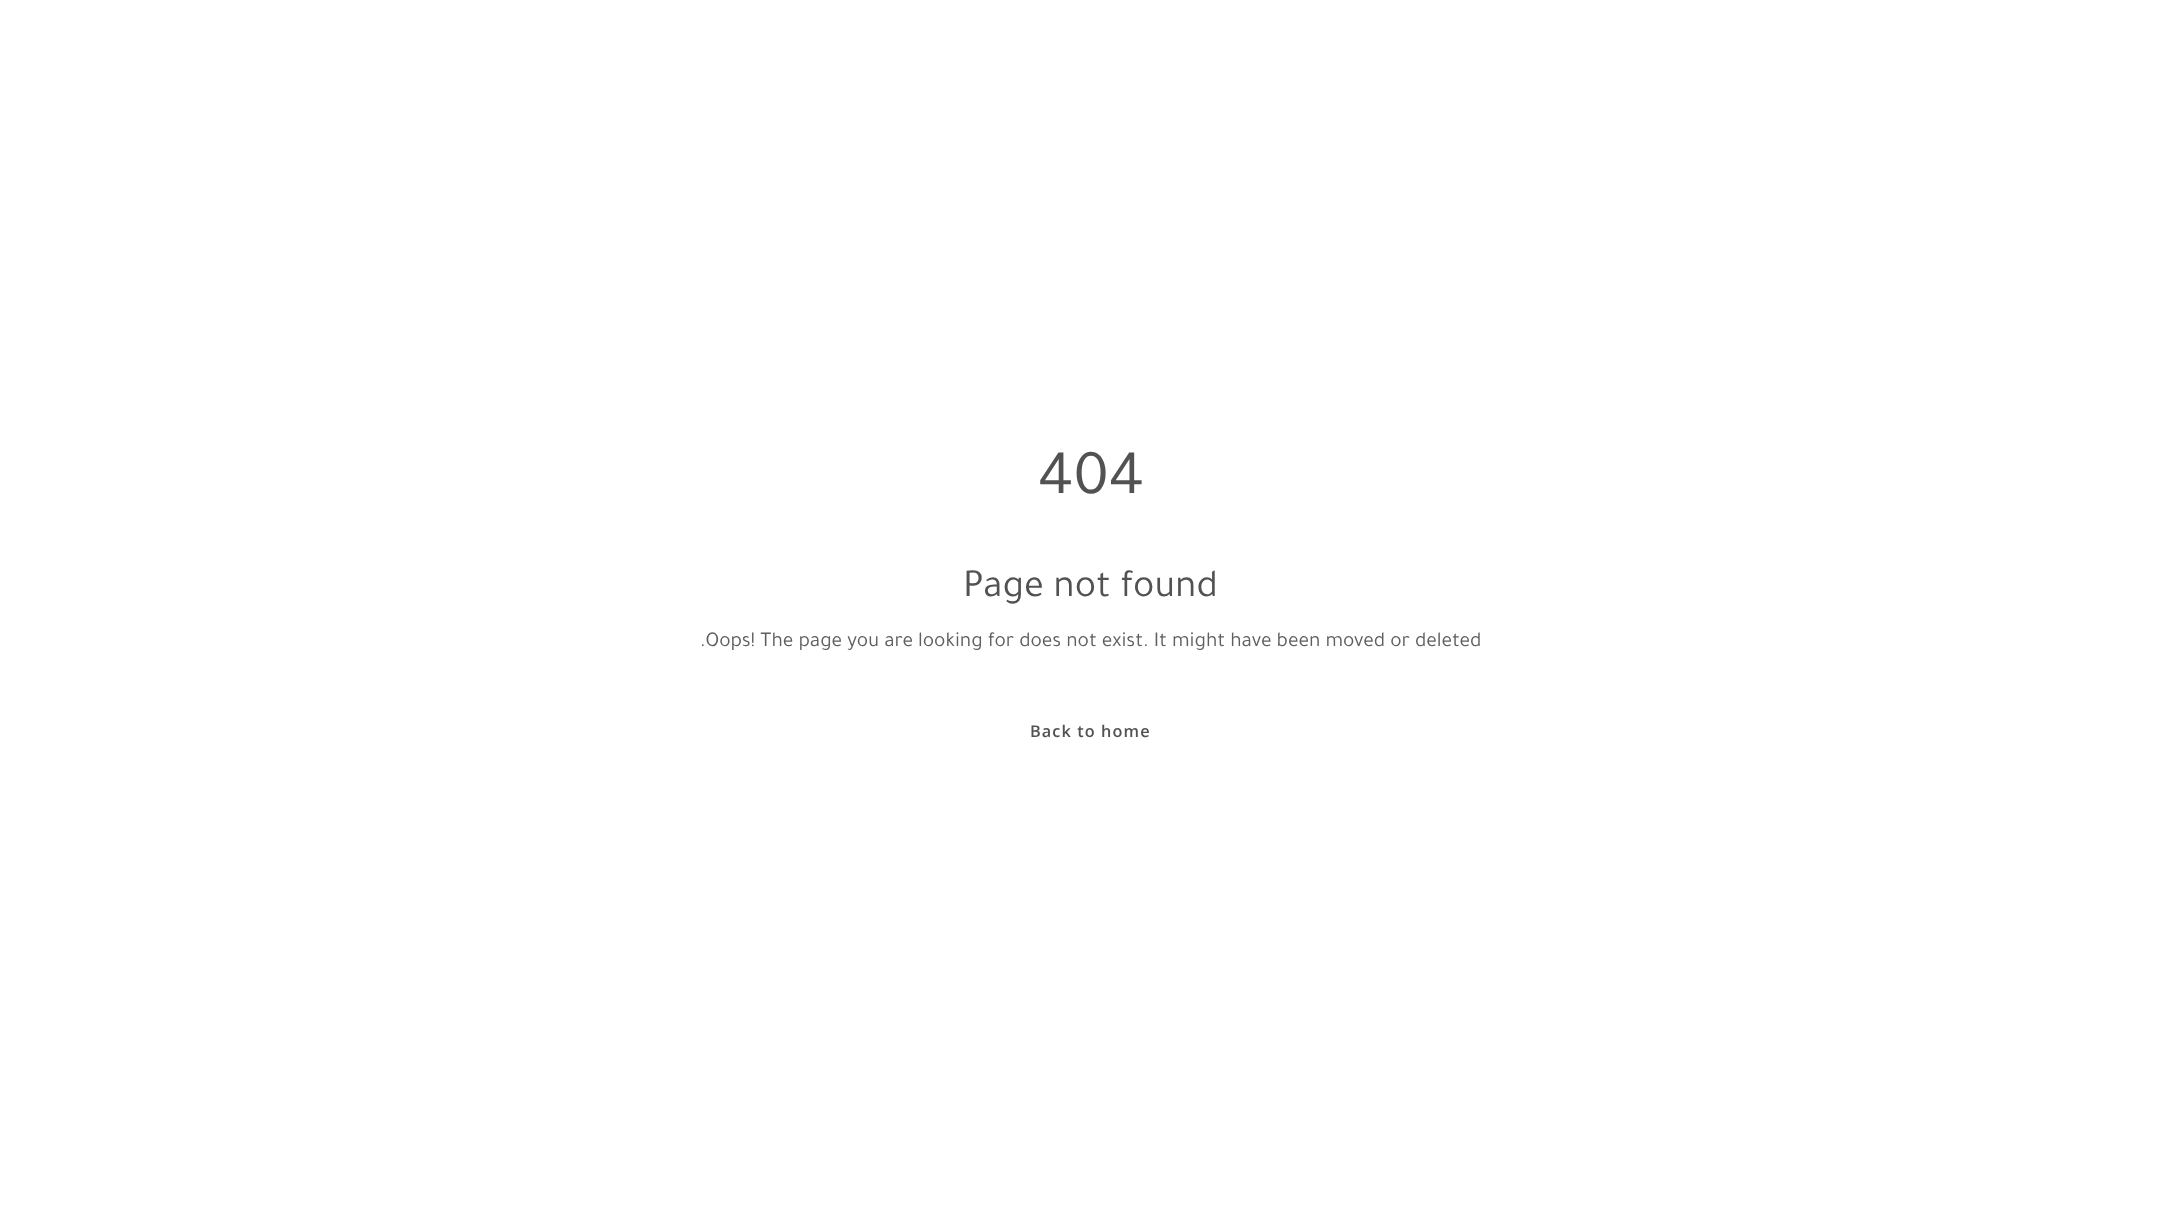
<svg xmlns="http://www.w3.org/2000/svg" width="2181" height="1208">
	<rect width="100%" height="100%" fill="#FFFFFF" />
	<text x="1038" y="493" font-family="Tajawal" font-size="64" fill="#525252">404</text>
	<text x="963" y="596" font-family="Tajawal" font-size="40" fill="#525252">Page not found</text>
	<text x="700" y="646" font-family="Tajawal" font-size="21.25" fill="#5F5F5F">.Oops! The page you are looking for does not exist. It might have been moved or deleted</text>
	<text x="1030" y="737" font-family="Open Sans" font-size="16.25" font-weight="600" letter-spacing="1.1" fill="#525252">Back to home</text>
</svg>
